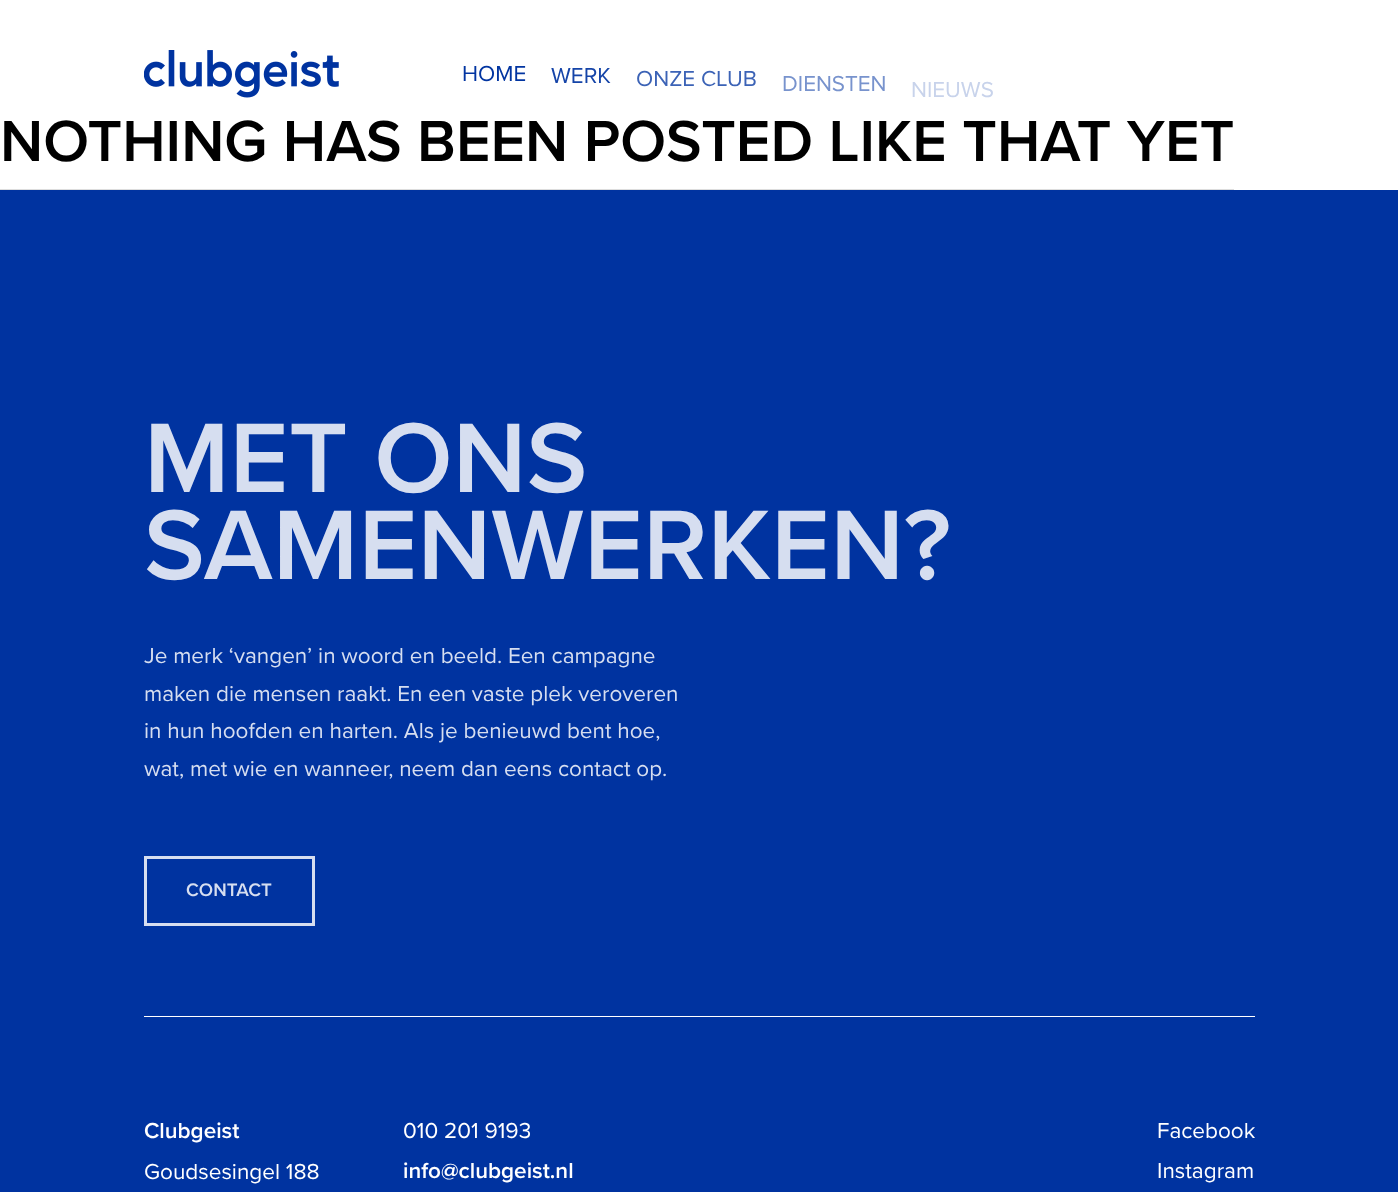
<svg xmlns="http://www.w3.org/2000/svg" width="1398" height="1192">
	<rect width="100%" height="100%" fill="#FFFFFF" />
	<image x="144" y="50" width="195" height="48" href="assets/img1.png" />
	<text x="462" y="81" font-family="Proxima Nova" font-size="22.5" fill="#0235A1">HOME</text>
	<text x="551" y="83" font-family="Proxima Nova" font-size="22.5" fill="#1544A8">WERK</text>
	<text x="636" y="86" font-family="Proxima Nova" font-size="22.5" fill="#3C63B6">ONZE CLUB</text>
	<text x="782" y="91" font-family="Proxima Nova" font-size="22.5" fill="#7893CD">DIENSTEN</text>
	<text x="911" y="97" font-family="Proxima Nova" font-size="22.5" fill="#C8D3EB">NIEUWS</text>
	<rect x="0" y="189" width="1234" height="1" fill="#DDDDDD" />
	<text x="0" y="161" font-family="Proxima Nova" font-size="60" font-weight="600" fill="#000000">NOTHING HAS BEEN POSTED LIKE THAT YET</text>
	<rect x="0" y="190" width="1398" height="1002" fill="#0033A0" />
	<g font-family="Proxima Nova" font-size="102.5" font-weight="600" fill="#D6DEF0">
		<text x="144" y="492">MET ONS</text>
		<text x="144" y="579">SAMENWERKEN?</text>
	</g>
	<g font-family="Proxima Nova" font-size="22.5" fill="#D6DEF0">
		<text x="144" y="663">Je merk ‘vangen’ in woord en beeld. Een campagne</text>
		<text x="144" y="701">maken die mensen raakt. En een vaste plek veroveren</text>
		<text x="144" y="738">in hun hoofden en harten. Als je benieuwd bent hoe,</text>
		<text x="144" y="776">wat, met wie en wanneer, neem dan eens contact op.</text>
	</g>
	<rect x="145.5" y="857.5" width="168" height="67" fill="none" stroke="#D6DEF0" stroke-width="3" />
	<text x="186" y="896" font-family="Proxima Nova" font-size="18.75" font-weight="600" fill="#D6DEF0">CONTACT</text>
	<rect x="144" y="1016" width="1111" height="1" fill="#FFFFFF" />
	<text x="144" y="1138" font-family="Proxima Nova" font-size="22.5" font-weight="600" fill="#FFFFFF">Clubgeist</text>
	<g font-family="Proxima Nova" font-size="22.5" fill="#FFFFFF">
		<text x="144" y="1179">Goudsesingel 188</text>
		<text x="403" y="1138">010 201 9193</text>
	</g>
	<text x="403" y="1178" font-family="Proxima Nova" font-size="22.5" font-weight="600" fill="#FFFFFF">info@clubgeist.nl</text>
	<g font-family="Proxima Nova" font-size="22.5" fill="#FFFFFF">
		<text x="1157" y="1138">Facebook</text>
		<text x="1157" y="1178">Instagram</text>
	</g>
</svg>
